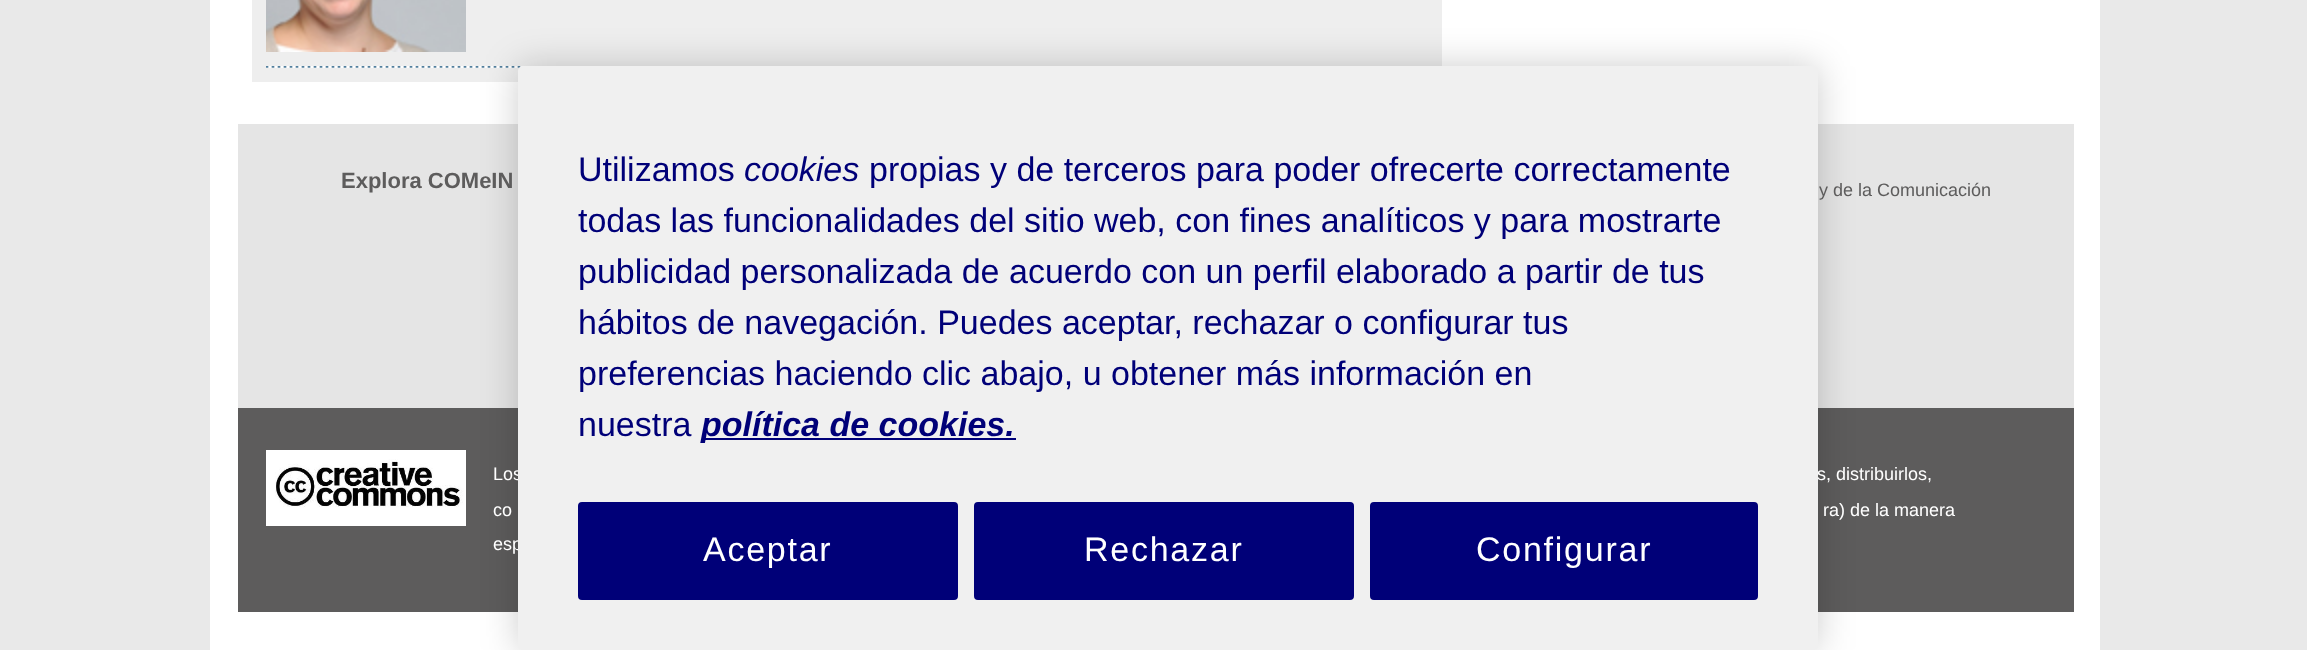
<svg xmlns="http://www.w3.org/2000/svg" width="2307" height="650">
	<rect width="100%" height="100%" fill="#E9E9E9" />
	<rect x="210" y="0" width="1890" height="650" fill="#FFFFFF" />
	<rect x="252" y="0" width="1190" height="82" fill="#EEEEEE" />
	<image x="266" y="0" width="200" height="52" href="assets/img1.png" />
	<image x="266" y="66" width="257" height="2" href="assets/img2.png" />
	<rect x="238" y="124" width="1836" height="284" fill="#E5E5E5" />
	<rect x="238" y="408" width="1836" height="204" fill="#5D5C5C" />
	<image x="266" y="450" width="200" height="76" href="assets/img3.png" />
	<rect x="518" y="66" width="1300" height="584" rx="5" fill="#000000" fill-opacity="0.2" filter="blur(18px)" />
	<g font-family="Liberation Sans" font-size="18" fill="#FFFFFF">
		<text x="493" y="480">Los</text>
		<text x="1817" y="480">s, distribuirlos,</text>
		<text x="493" y="550">esp</text>
	</g>
	<rect x="518" y="66" width="1300" height="584" rx="5" fill="#F0F0F0" />
	<text x="578" y="181" font-family="Liberation Sans" font-size="34" fill="#000078">Utilizamos</text>
	<text x="744" y="181" font-family="Liberation Sans" font-size="34" font-style="italic" fill="#000078">cookies</text>
	<g font-family="Liberation Sans" font-size="34" fill="#000078">
		<text x="869" y="181">propias y de terceros para poder ofrecerte correctamente</text>
		<text x="578" y="232">todas las funcionalidades del sitio web, con fines analíticos y para mostrarte</text>
		<text x="578" y="283">publicidad personalizada de acuerdo con un perfil elaborado a partir de tus</text>
		<text x="578" y="334">hábitos de navegación. Puedes aceptar, rechazar o configurar tus</text>
		<text x="578" y="385">preferencias haciendo clic abajo, u obtener más información en</text>
		<text x="578" y="436">nuestra</text>
	</g>
	<rect x="702" y="438" width="314" height="2" fill="#000078" />
	<text x="701" y="436" font-family="Liberation Sans" font-size="34" font-weight="700" font-style="italic" fill="#000078">política de cookies.</text>
	<rect x="579" y="503" width="378" height="96" rx="3" fill="#000078" stroke="#000078" stroke-width="2" />
	<text x="703" y="561" font-family="Liberation Sans" font-size="34" letter-spacing="1.75" fill="#FFFFFF">Aceptar</text>
	<rect x="975" y="503" width="378" height="96" rx="3" fill="#000078" stroke="#000078" stroke-width="2" />
	<text x="1084" y="561" font-family="Liberation Sans" font-size="34" letter-spacing="1.75" fill="#FFFFFF">Rechazar</text>
	<rect x="1371" y="503" width="386" height="96" rx="3" fill="#000078" stroke="#000078" stroke-width="2" />
	<text x="1476" y="561" font-family="Liberation Sans" font-size="34" letter-spacing="1.75" fill="#FFFFFF">Configurar</text>
	<text x="341" y="188" font-family="Liberation Sans" font-size="22" font-weight="700" fill="#5D5C5C">Explora COMeIN</text>
	<text x="1819" y="196" font-family="Liberation Sans" font-size="18" fill="#5D5C5C">y de la Comunicación</text>
	<g font-family="Liberation Sans" font-size="18" fill="#FFFFFF">
		<text x="493" y="516">co</text>
		<text x="1823" y="516">ra) de la manera</text>
	</g>
</svg>
